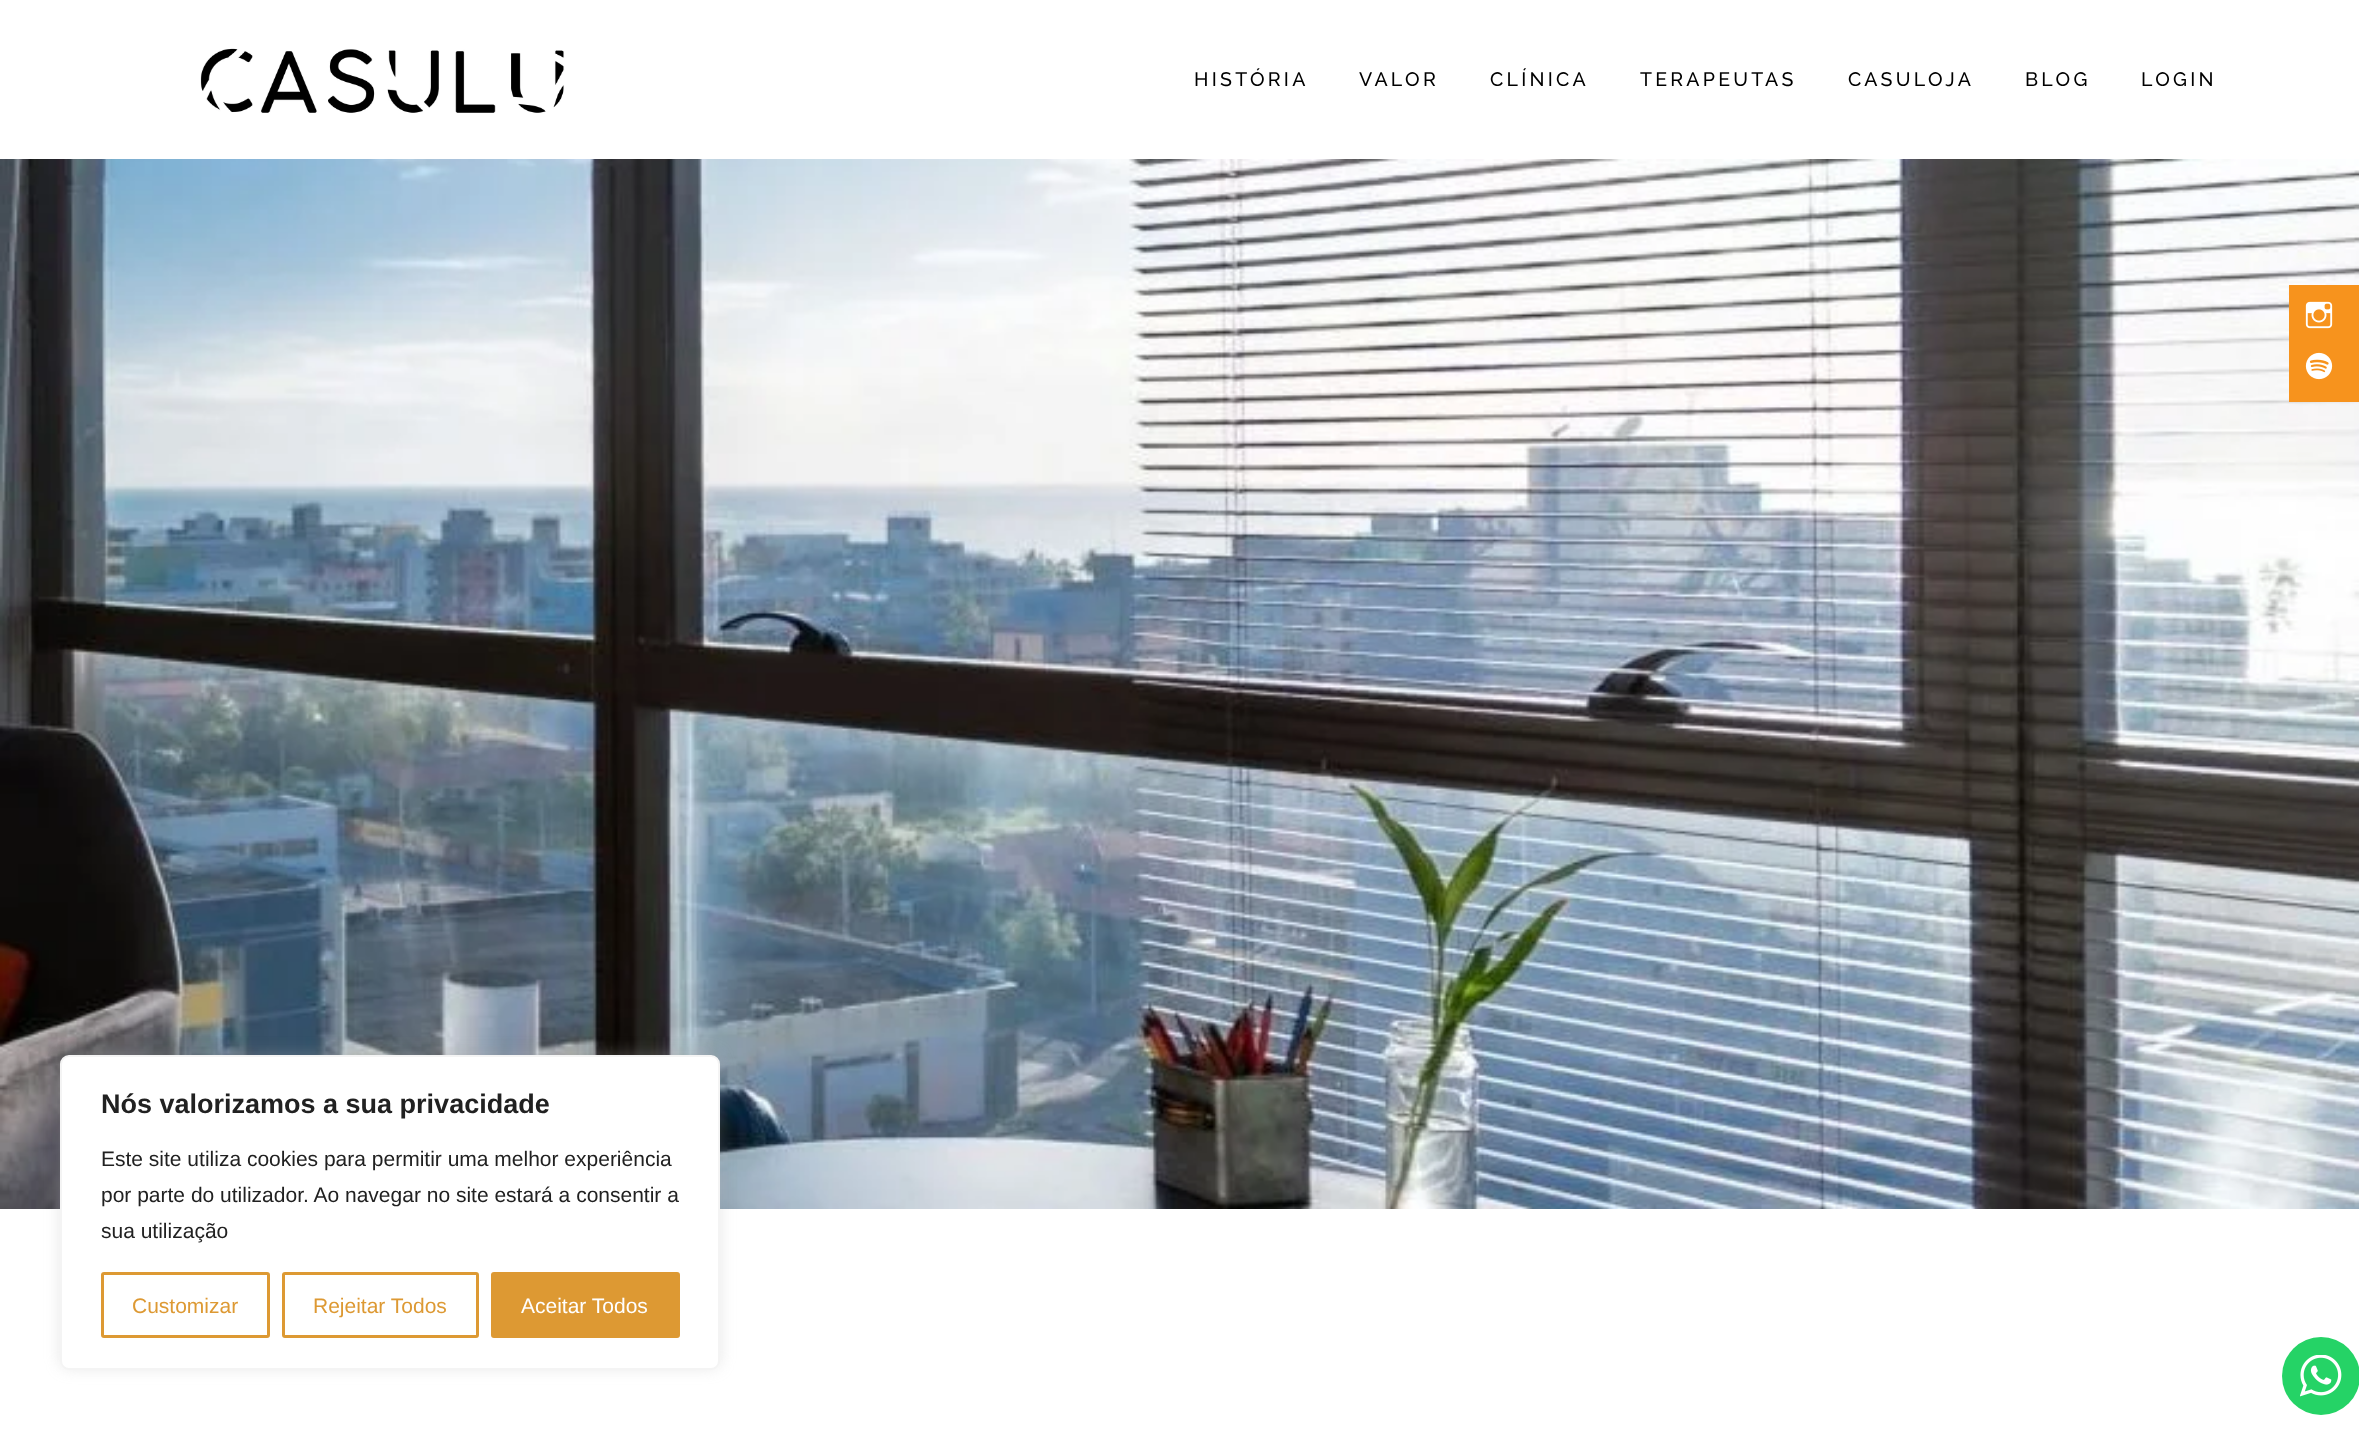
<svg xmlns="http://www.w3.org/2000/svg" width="2359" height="1429">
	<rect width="100%" height="100%" fill="#FFFFFF" />
	<image x="200" y="48" width="365" height="65" href="assets/img1.png" />
	<g font-family="Raleway" font-size="19.5" font-weight="500" letter-spacing="3.25" fill="#000000">
		<text x="1194" y="86">HISTÓRIA</text>
		<text x="1359" y="86">VALOR</text>
		<text x="1490" y="86">CLÍNICA</text>
		<text x="1640" y="86">TERAPEUTAS</text>
		<text x="1848" y="86">CASULOJA</text>
		<text x="2025" y="86">BLOG</text>
		<text x="2141" y="86">LOGIN</text>
	</g>
	<image x="0" y="159" width="2359" height="1050" href="assets/img2.png" />
	<rect x="2289" y="285" width="70" height="117" fill="#F7931D" />
	<image x="2305" y="301" width="28" height="28" href="assets/img3.png" />
	<image x="2305" y="352" width="28" height="28" href="assets/img4.png" />
	<rect x="60" y="1053" width="660" height="315" rx="9" fill="#ACABAB" fill-opacity="0.3" filter="blur(7.5px)" />
	<rect x="61" y="1056" width="658" height="313" rx="8" fill="#FFFFFF" stroke="#F4F4F4" stroke-width="2" />
	<text x="101" y="1113" font-family="Liberation Sans" font-size="27" font-weight="700" fill="#212121">Nós valorizamos a sua privacidade</text>
	<g font-family="Liberation Sans" font-size="21" fill="#212121">
		<text x="101" y="1166">Este site utiliza cookies para permitir uma melhor experiência</text>
		<text x="101" y="1202">por parte do utilizador. Ao navegar no site estará a consentir a</text>
		<text x="101" y="1238">sua utilização</text>
	</g>
	<rect x="102.5" y="1273.5" width="166" height="63" rx="1.5" fill="none" stroke="#DD9933" stroke-width="3" />
	<text x="132" y="1313" font-family="Liberation Sans" font-size="21" fill="#DD9933">Customizar</text>
	<rect x="283.5" y="1273.5" width="194" height="63" rx="1.5" fill="none" stroke="#DD9933" stroke-width="3" />
	<text x="313" y="1313" font-family="Liberation Sans" font-size="21" fill="#DD9933">Rejeitar Todos</text>
	<rect x="492.5" y="1273.5" width="186" height="63" rx="1.5" fill="#DD9933" stroke="#DD9933" stroke-width="3" />
	<text x="521" y="1313" font-family="Liberation Sans" font-size="21" fill="#FFFFFF">Aceitar Todos</text>
	<circle cx="2321" cy="1376" r="39" fill="#25D366" />
	<image x="2300" y="1355" width="42" height="42" href="assets/img5.png" />
</svg>
